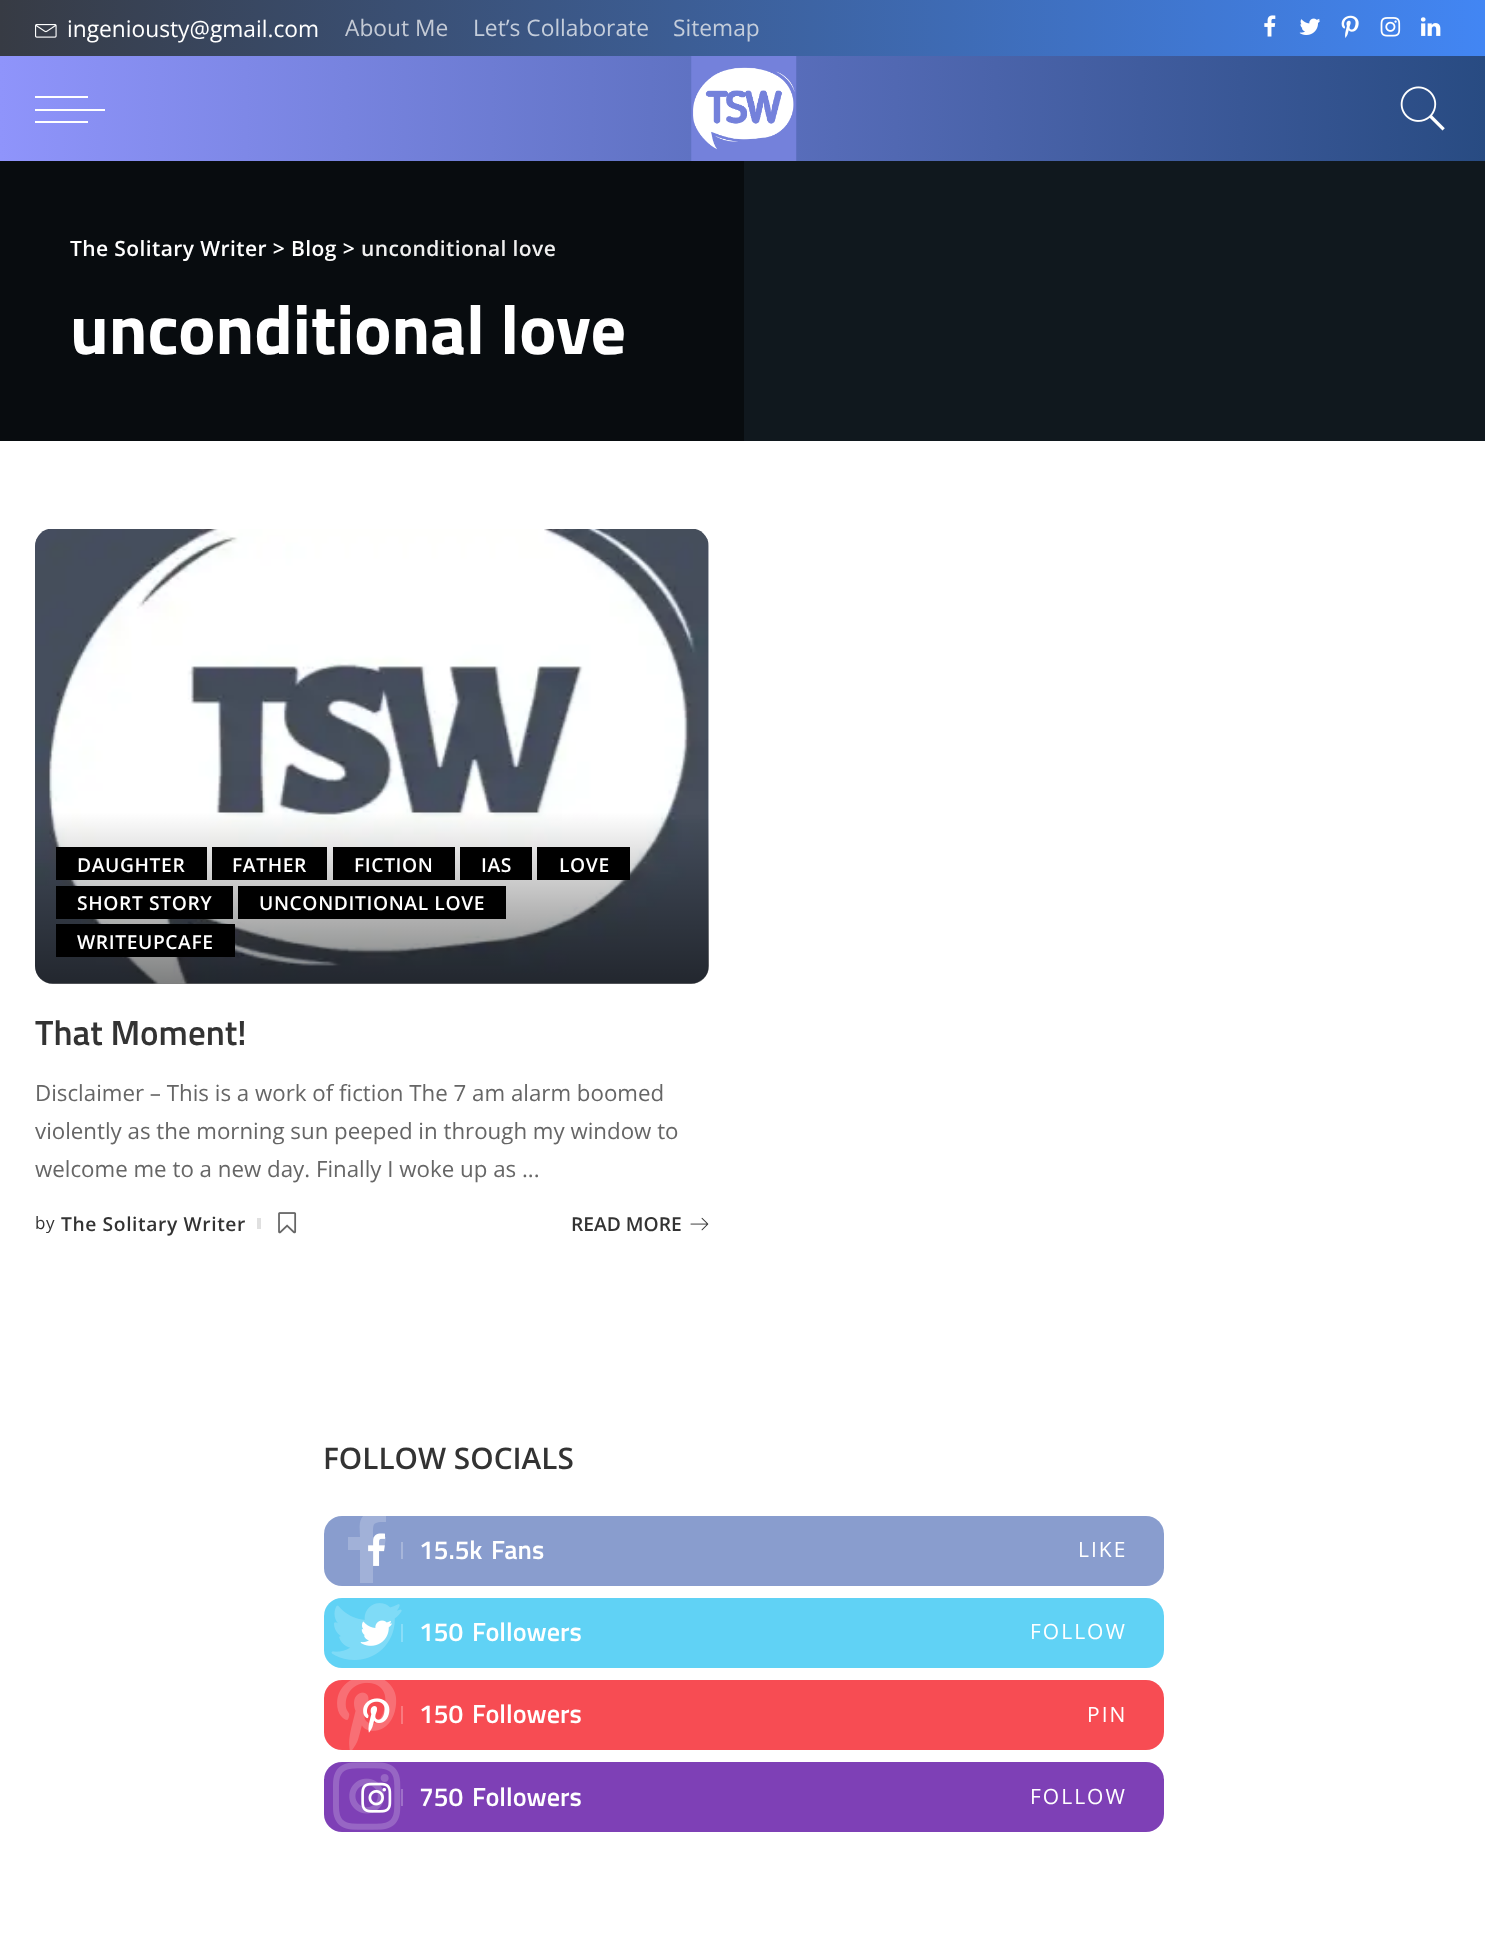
<svg xmlns="http://www.w3.org/2000/svg" width="1485" height="1942">
	<defs>
		<linearGradient id="g1" gradientUnits="userSpaceOnUse" x1="0" y1="28" x2="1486" y2="28"><stop offset="0" stop-color="#373B44" /><stop offset="1" stop-color="#4286F4" /></linearGradient>
		<linearGradient id="g2" gradientUnits="userSpaceOnUse" x1="0" y1="109" x2="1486" y2="108"><stop offset="0" stop-color="#8F94FB" /><stop offset="1" stop-color="#284B82" /></linearGradient>
		<linearGradient id="g3" gradientUnits="userSpaceOnUse" x1="372" y1="812" x2="372" y2="984"><stop offset="0" stop-color="#000000" stop-opacity="0" /><stop offset="1" stop-color="#000000" stop-opacity="0.5" /></linearGradient>
	</defs>
	<rect width="100%" height="100%" fill="#FFFFFF" />
	<rect x="0" y="0" width="1485" height="56" fill="url(#g1)" />
	<image x="35" y="24" width="22" height="14" href="assets/img1.png" />
	<text x="67" y="37" font-family="Open Sans" font-size="22.75" fill="#FFFFFF">ingeniousty@gmail.com</text>
	<text x="345" y="36" font-family="Open Sans" font-size="22.75" fill="#C4CAD5">About Me</text>
	<g font-family="Open Sans" font-size="22.75" fill="#C4CDDB">
		<text x="473" y="36">Let’s Collaborate</text>
		<text x="673" y="36">Sitemap</text>
	</g>
	<image x="1264" y="15" width="12" height="22" href="assets/img2.png" />
	<image x="1299" y="18" width="21" height="17" href="assets/img3.png" />
	<image x="1341" y="15" width="18" height="23" href="assets/img4.png" />
	<image x="1380" y="17" width="21" height="20" href="assets/img5.png" />
	<image x="1420" y="17" width="21" height="19" href="assets/img6.png" />
	<rect x="0" y="56" width="1485" height="105" fill="url(#g2)" />
	<rect x="35" y="109" width="70" height="2" fill="#FFFFFF" />
	<rect x="35" y="96" width="53" height="2" fill="#FFFFFF" />
	<rect x="35" y="121" width="53" height="2" fill="#FFFFFF" />
	<image x="691" y="56" width="106" height="105" href="assets/img7.png" />
	<image x="1400" y="86" width="45" height="45" href="assets/img8.png" />
	<rect x="744" y="161" width="741" height="280" fill="#10181E" />
	<rect x="0" y="161" width="744" height="280" fill="#080C0F" />
	<text x="70" y="256" font-family="Open Sans" font-size="21" font-weight="600" letter-spacing="0.4" fill="#FFFFFF">The Solitary Writer &gt; Blog &gt;</text>
	<text x="361" y="256" font-family="Open Sans" font-size="21" font-weight="600" letter-spacing="0.4" fill="#EFEFEF">unconditional love</text>
	<text x="70" y="354" font-family="Titillium Web" font-size="70" font-weight="700" fill="#FFFFFF">unconditional love</text>
	<image x="35" y="529" width="674" height="455" href="assets/img9.png" />
	<path d="M35 812H709V966C709 976 701 984 691 984H53C43 984 35 976 35 966Z" fill="url(#g3)" />
	<rect x="56" y="847" width="151" height="33" fill="#000000" />
	<text x="77" y="872" font-family="Open Sans" font-size="19.25" font-weight="600" letter-spacing="0.6" fill="#FFFFFF">DAUGHTER</text>
	<rect x="212" y="847" width="115" height="33" fill="#000000" />
	<text x="232" y="872" font-family="Open Sans" font-size="19.25" font-weight="600" letter-spacing="0.6" fill="#FFFFFF">FATHER</text>
	<rect x="333" y="847" width="122" height="33" fill="#000000" />
	<text x="354" y="872" font-family="Open Sans" font-size="19.25" font-weight="600" letter-spacing="0.6" fill="#FFFFFF">FICTION</text>
	<rect x="460" y="847" width="72" height="33" fill="#000000" />
	<text x="481" y="872" font-family="Open Sans" font-size="19.25" font-weight="600" letter-spacing="0.6" fill="#FFFFFF">IAS</text>
	<rect x="537" y="847" width="93" height="33" fill="#000000" />
	<text x="559" y="872" font-family="Open Sans" font-size="19.25" font-weight="600" letter-spacing="0.6" fill="#FFFFFF">LOVE</text>
	<rect x="56" y="886" width="177" height="33" fill="#000000" />
	<text x="77" y="910" font-family="Open Sans" font-size="19.25" font-weight="600" letter-spacing="0.6" fill="#FFFFFF">SHORT STORY</text>
	<rect x="238" y="886" width="268" height="33" fill="#000000" />
	<text x="259" y="910" font-family="Open Sans" font-size="19.25" font-weight="600" letter-spacing="0.6" fill="#FFFFFF">UNCONDITIONAL LOVE</text>
	<rect x="56" y="924" width="179" height="33" fill="#000000" />
	<text x="77" y="949" font-family="Open Sans" font-size="19.25" font-weight="600" letter-spacing="0.6" fill="#FFFFFF">WRITEUPCAFE</text>
	<text x="35" y="1045" font-family="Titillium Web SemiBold" font-size="35" font-weight="600" fill="#333333">That Moment!</text>
	<g font-family="Open Sans" font-size="22.3" fill="#666666">
		<text x="35" y="1101">Disclaimer – This is a work of fiction The 7 am alarm boomed</text>
		<text x="35" y="1139">violently as the morning sun peeped in through my window to</text>
		<text x="35" y="1177">welcome me to a new day. Finally I woke up as ...</text>
	</g>
	<text x="35" y="1229" font-family="Open Sans" font-size="17" letter-spacing="0.6" fill="#333333">by</text>
	<text x="61" y="1231" font-family="Open Sans" font-size="19.25" font-weight="600" letter-spacing="0.6" fill="#333333">The Solitary Writer</text>
	<rect x="257" y="1218" width="4" height="11" fill="#E0E0E0" />
	<image x="278" y="1212" width="19" height="22" href="assets/img10.png" />
	<text x="571" y="1231" font-family="Open Sans" font-size="19.25" font-weight="600" fill="#333333">READ MORE</text>
	<image x="690" y="1217" width="19" height="14" href="assets/img11.png" />
	<text x="323" y="1469" font-family="Open Sans" font-size="29.75" font-weight="600" fill="#333333">FOLLOW SOCIALS</text>
	<rect x="324" y="1516" width="840" height="70" rx="18" fill="#899DCE" />
	<path d="M386 1516V1522C372 1522 373 1523 373 1537H386L384 1550H373V1583H360V1550H348V1537H360C360 1530 358 1522 363 1516Z" fill="#A1B1D8" />
	<image x="368" y="1533" width="17" height="33" href="assets/img12.png" />
	<rect x="401" y="1542" width="2" height="17" fill="#A7B6DA" />
	<g font-family="Titillium Web SemiBold" font-size="26.25" font-weight="600" fill="#FFFFFF">
		<text x="419" y="1559">15.5k</text>
		<text x="491" y="1559">Fans</text>
	</g>
	<text x="1078" y="1557" font-family="Open Sans" font-size="21" letter-spacing="2" fill="#FFFFFF">LIKE</text>
	<rect x="324" y="1598" width="840" height="70" rx="18" fill="#60D2F5" />
	<rect x="401" y="1624" width="2" height="18" fill="#88DDF8" />
	<image x="331" y="1603" width="71" height="57" href="assets/img13.png" />
	<image x="360" y="1620" width="32" height="26" href="assets/img14.png" />
	<g font-family="Titillium Web SemiBold" font-size="26.25" font-weight="600" fill="#FFFFFF">
		<text x="419" y="1641">150</text>
		<text x="472" y="1641">Followers</text>
	</g>
	<text x="1030" y="1639" font-family="Open Sans" font-size="21" letter-spacing="2" fill="#FFFFFF">FOLLOW</text>
	<rect x="324" y="1680" width="840" height="70" rx="18" fill="#F74C53" />
	<image x="337" y="1680" width="60" height="70" href="assets/img15.png" />
	<image x="363" y="1698" width="27" height="35" href="assets/img16.png" />
	<rect x="401" y="1706" width="2" height="18" fill="#F9797E" />
	<g font-family="Titillium Web SemiBold" font-size="26.25" font-weight="600" fill="#FFFFFF">
		<text x="419" y="1723">150</text>
		<text x="472" y="1723">Followers</text>
	</g>
	<text x="1087" y="1722" font-family="Open Sans" font-size="21" letter-spacing="2" fill="#FFFFFF">PIN</text>
	<rect x="324" y="1762" width="840" height="70" rx="18" fill="#7E40B6" />
	<image x="333" y="1762" width="68" height="68" href="assets/img17.png" />
	<image x="361" y="1782" width="31" height="31" href="assets/img18.png" />
	<rect x="401" y="1789" width="2" height="17" fill="#9E70C8" />
	<g font-family="Titillium Web SemiBold" font-size="26.25" font-weight="600" fill="#FFFFFF">
		<text x="419" y="1806">750</text>
		<text x="472" y="1806">Followers</text>
	</g>
	<text x="1030" y="1804" font-family="Open Sans" font-size="21" letter-spacing="2" fill="#FFFFFF">FOLLOW</text>
</svg>
